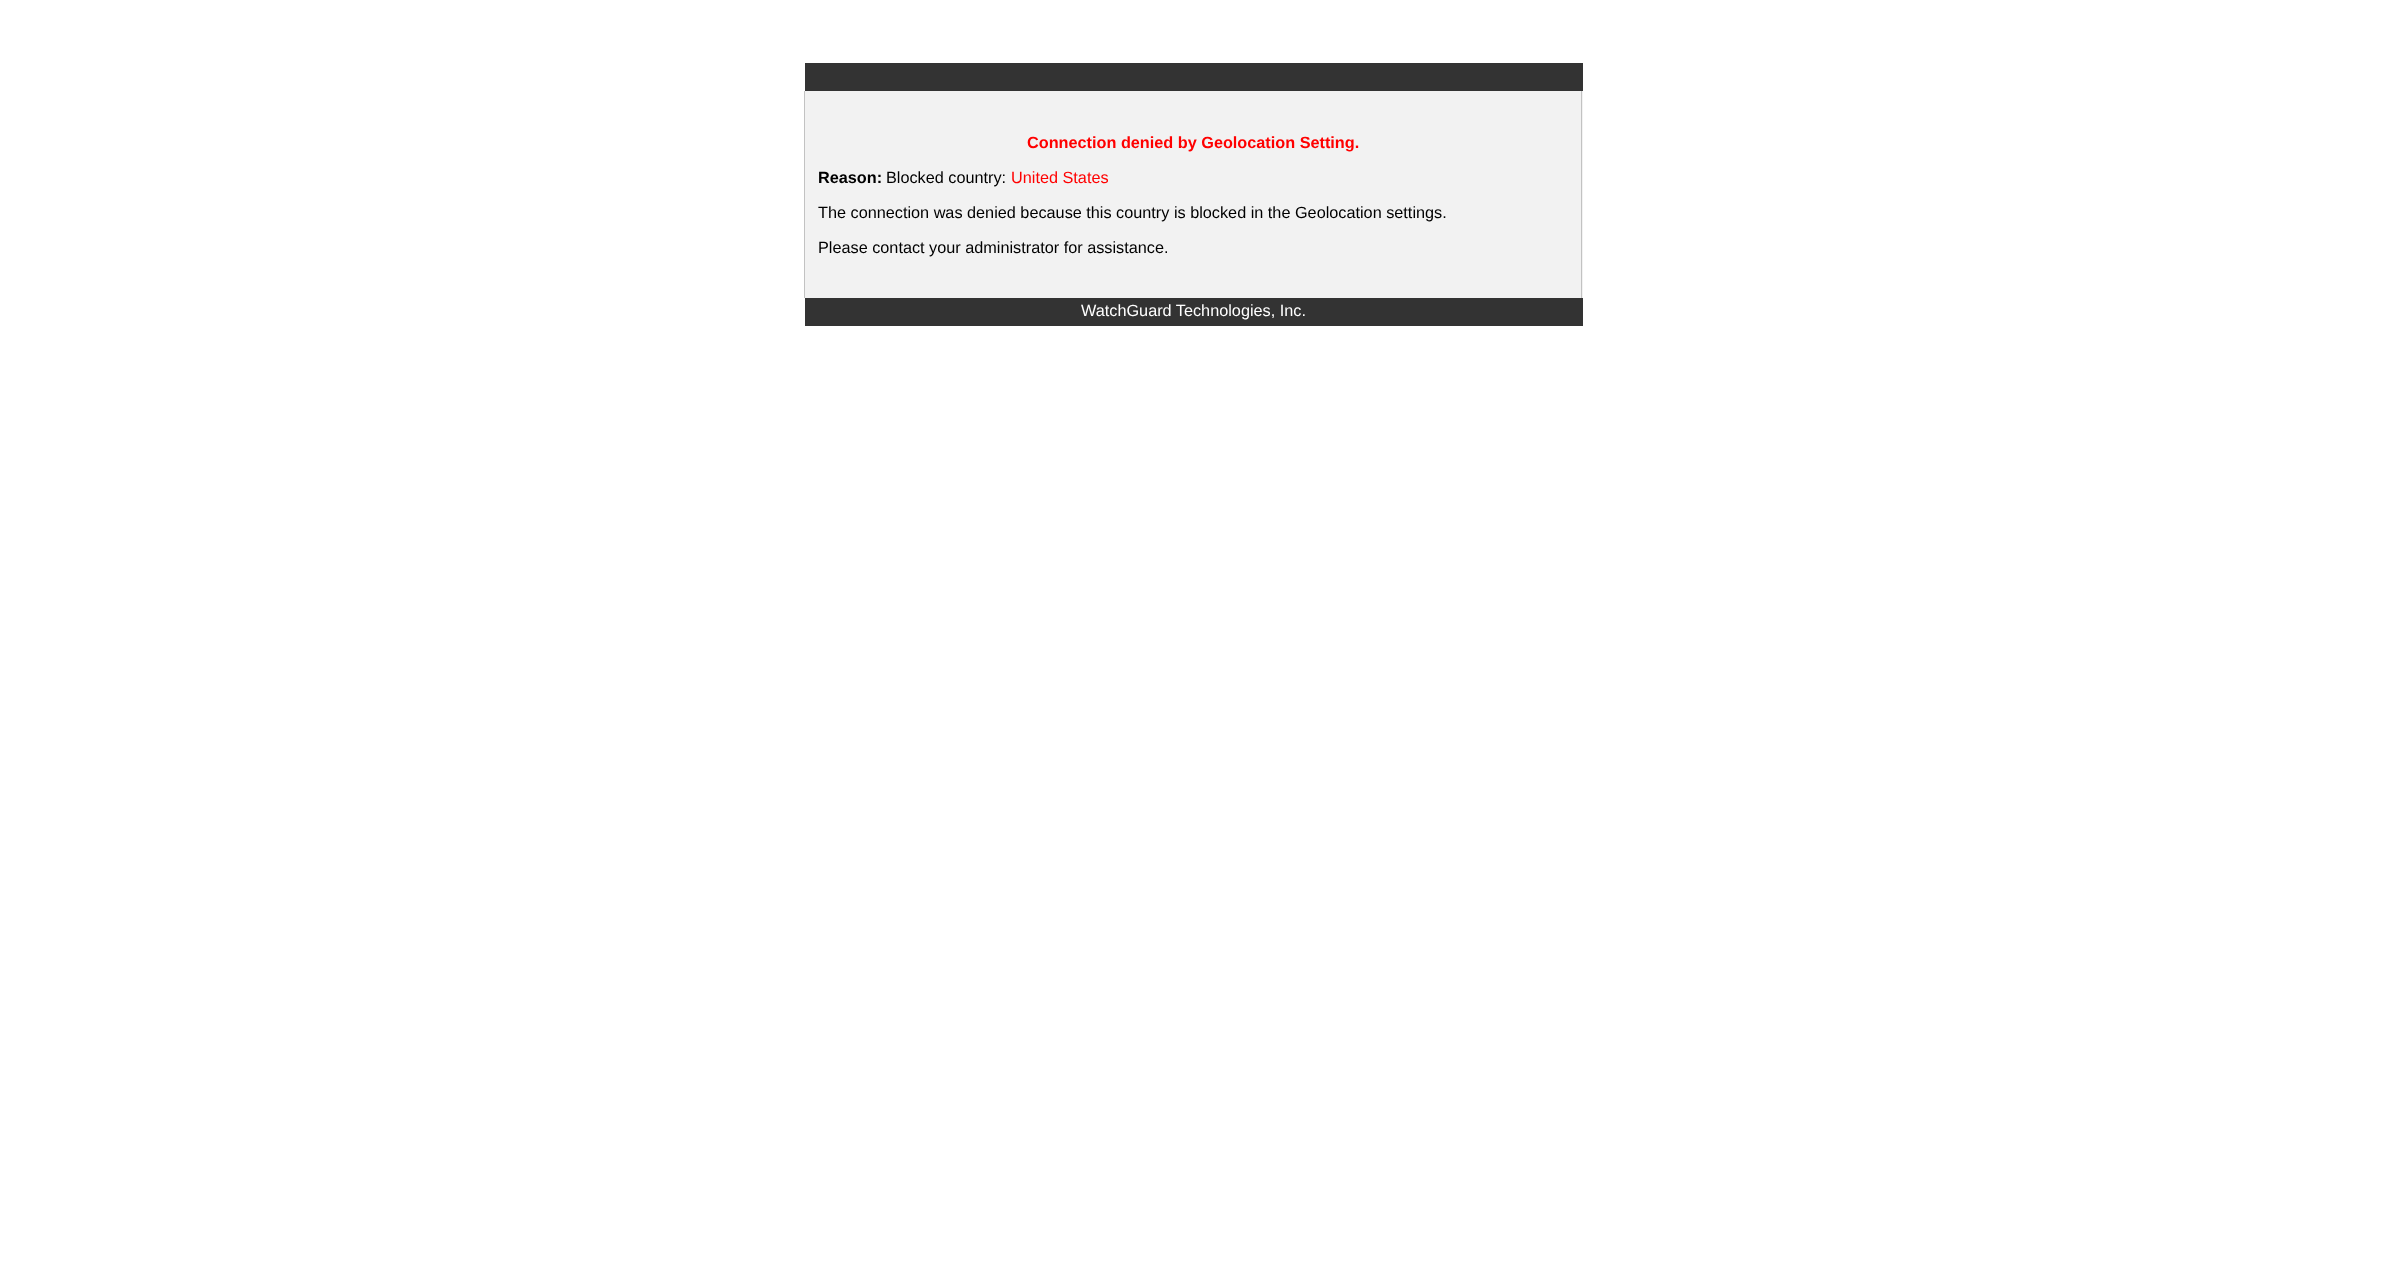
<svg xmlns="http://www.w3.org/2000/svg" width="2386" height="1276">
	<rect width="100%" height="100%" fill="#FFFFFF" />
	<rect x="805" y="63" width="778" height="28" fill="#333333" />
	<rect x="805" y="91" width="778" height="207" fill="#F2F2F2" />
	<rect x="1581" y="91" width="1" height="207" fill="#C2C2C2" />
	<rect x="804" y="91" width="1" height="207" fill="#C2C2C2" />
	<text x="1027" y="148" font-family="Liberation Sans" font-size="16.25" font-weight="700" fill="#FF0000">Connection denied by Geolocation Setting.</text>
	<text x="818" y="183" font-family="Liberation Sans" font-size="16.25" font-weight="700" fill="#000000">Reason:</text>
	<text x="886" y="183" font-family="Liberation Sans" font-size="16.25" fill="#000000">Blocked country:</text>
	<text x="1011" y="183" font-family="Liberation Sans" font-size="16.25" fill="#FF0000">United States</text>
	<g font-family="Liberation Sans" font-size="16.25" fill="#000000">
		<text x="818" y="218">The connection was denied because this country is blocked in the Geolocation settings.</text>
		<text x="818" y="253">Please contact your administrator for assistance.</text>
	</g>
	<rect x="805" y="298" width="778" height="28" fill="#333333" />
	<text x="1081" y="316" font-family="Liberation Sans" font-size="16.25" fill="#FFFFFF">WatchGuard Technologies, Inc.</text>
</svg>
